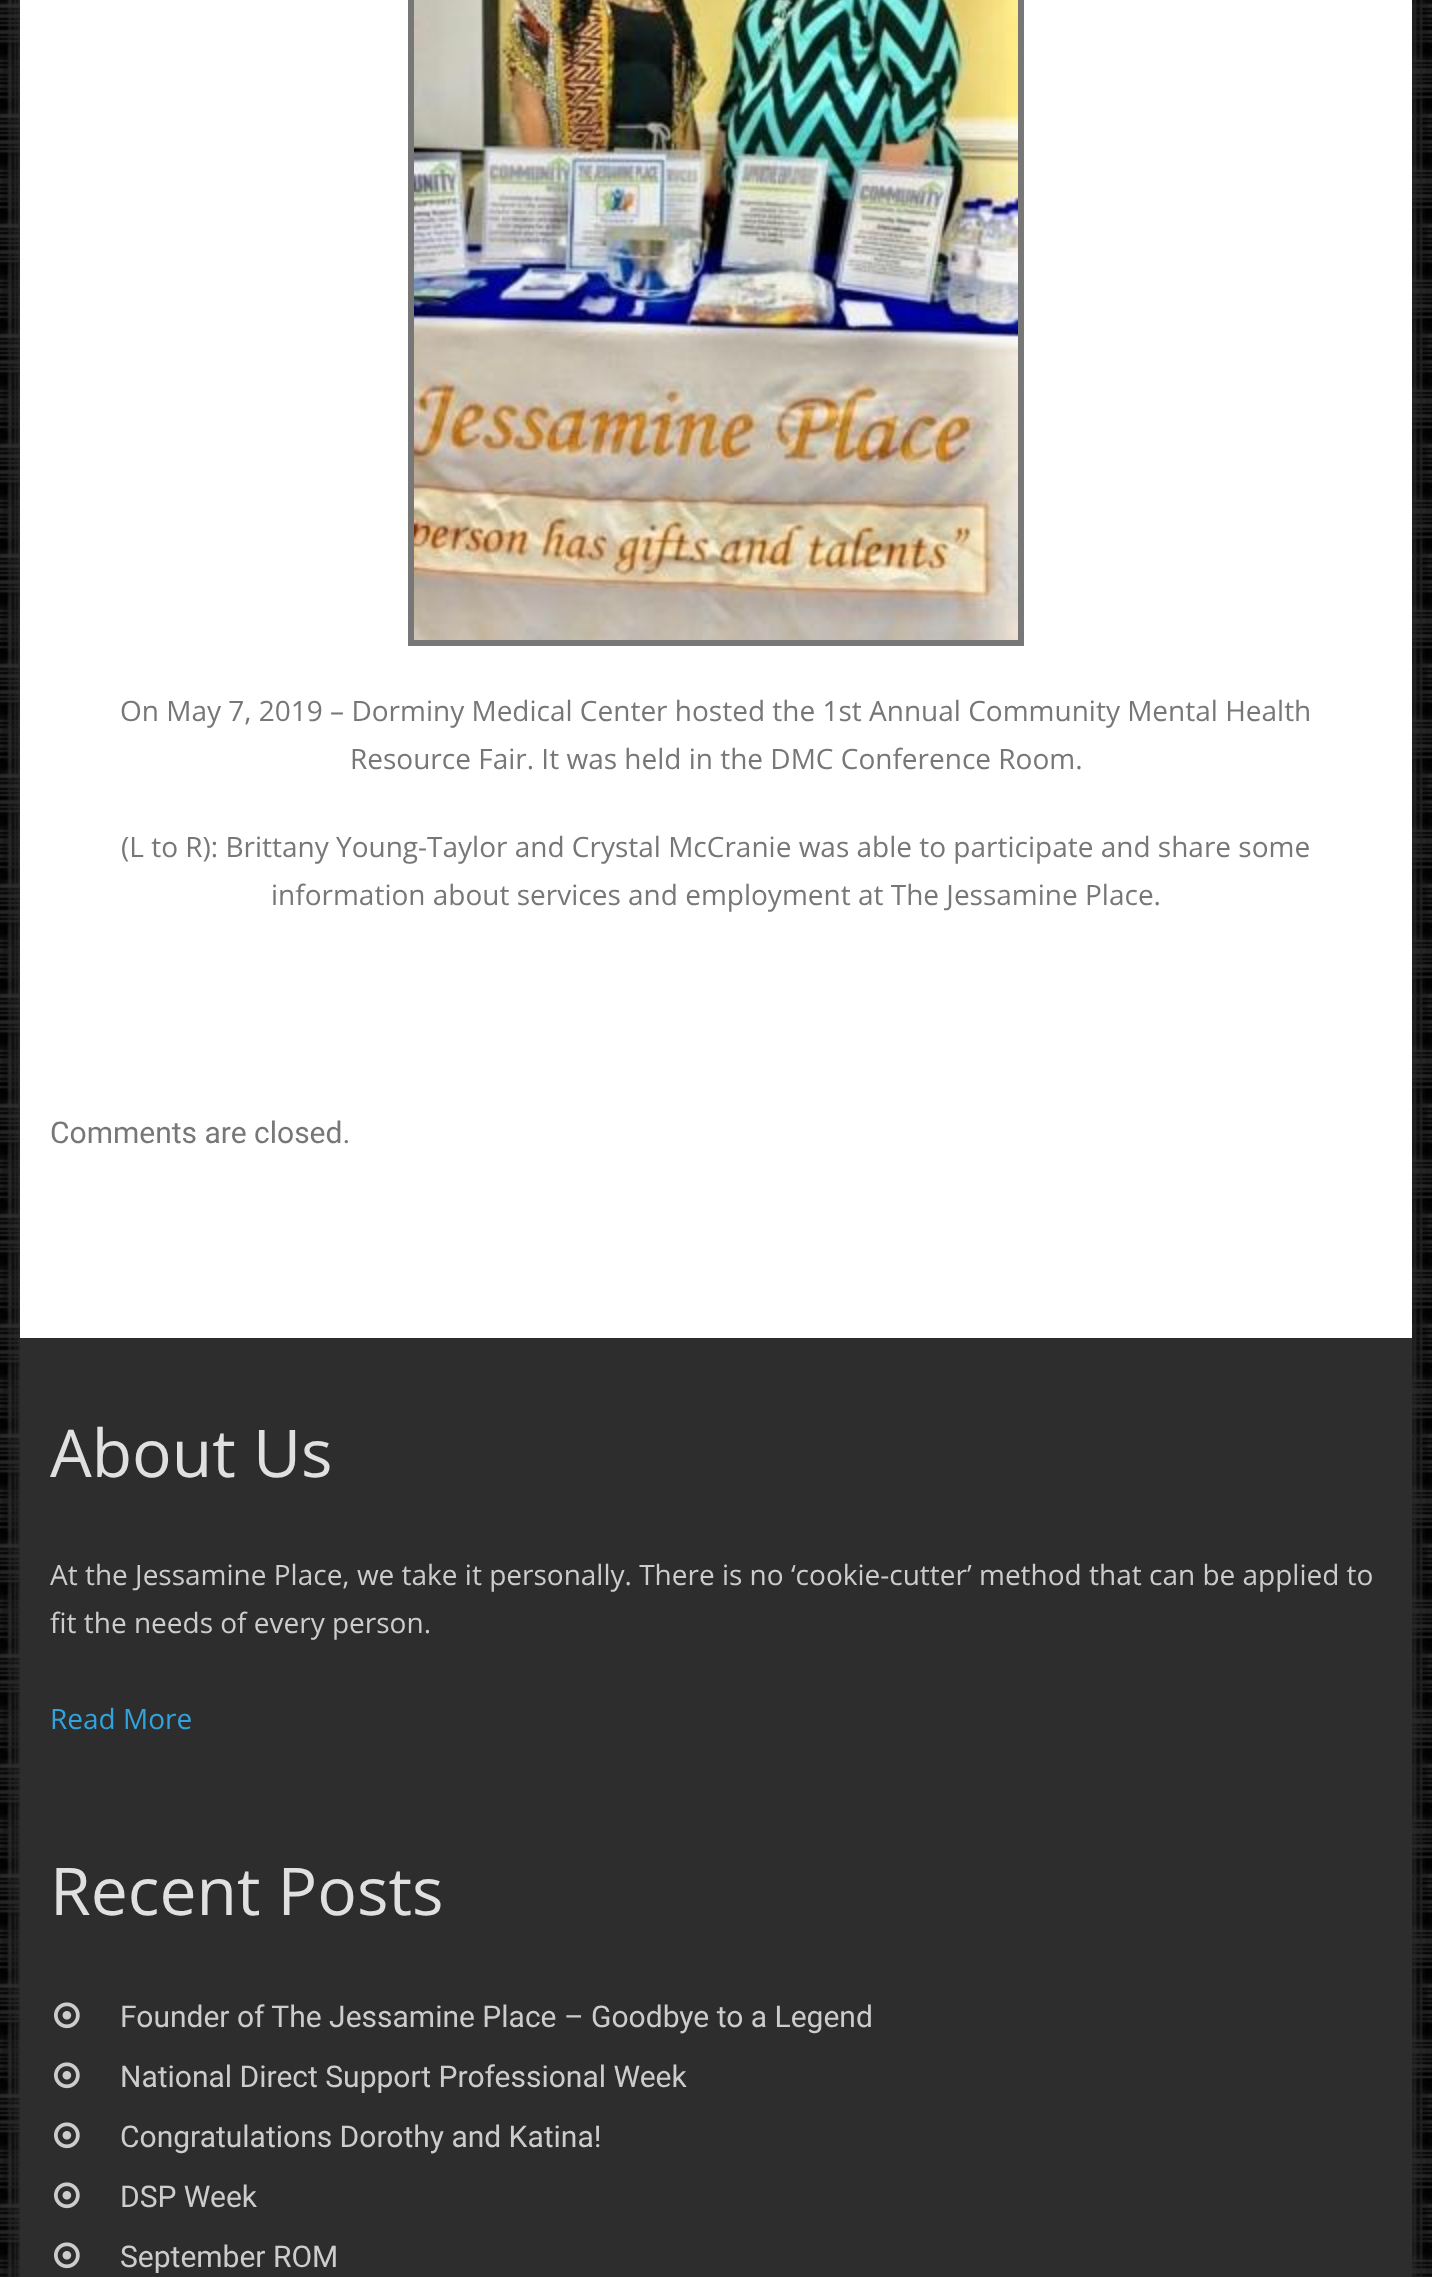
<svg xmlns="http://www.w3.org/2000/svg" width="1432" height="2277">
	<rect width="100%" height="100%" fill="#FFFFFF" />
	<image x="0" y="0" width="1432" height="2277" href="assets/img1.png" />
	<rect x="20" y="-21" width="1392" height="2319" fill="#303030" filter="blur(7px)" />
	<rect x="20" y="0" width="1392" height="1338" fill="#FFFFFF" />
	<rect x="411" y="-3" width="610" height="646" fill="none" stroke="#777777" stroke-width="6" />
	<image x="414" y="0" width="604" height="640" href="assets/img2.png" />
	<g font-family="Open Sans" font-size="28" fill="#777777">
		<text x="120" y="721">On May 7, 2019 – Dorminy Medical Center hosted the 1st Annual Community Mental Health</text>
		<text x="350" y="769">Resource Fair. It was held in the DMC Conference Room.</text>
		<text x="121" y="857">(L to R): Brittany Young-Taylor and Crystal McCranie was able to participate and share some</text>
		<text x="271" y="905">information about services and employment at The Jessamine Place.</text>
	</g>
	<text x="50" y="1143" font-family="Roboto" font-size="30" fill="#777777">Comments are closed.</text>
	<rect x="20" y="1338" width="1392" height="939" fill="#2D2D2D" />
	<text x="50" y="1477" font-family="Open Sans" font-size="66" fill="#E0E0E0">About Us</text>
	<g font-family="Open Sans" font-size="28" fill="#CCCCCC">
		<text x="50" y="1585">At the Jessamine Place, we take it personally. There is no ‘cookie-cutter’ method that can be applied to</text>
		<text x="50" y="1633">fit the needs of every person.</text>
	</g>
	<text x="50" y="1729" font-family="Open Sans" font-size="28" fill="#31A3DD">Read More</text>
	<text x="50" y="1915" font-family="Open Sans" font-size="66" fill="#E0E0E0">Recent Posts</text>
	<image x="54" y="2002" width="26" height="27" href="assets/img3.png" />
	<text x="120" y="2027" font-family="Roboto" font-size="30" fill="#CCCCCC">Founder of The Jessamine Place – Goodbye to a Legend</text>
	<image x="54" y="2062" width="26" height="27" href="assets/img3.png" />
	<text x="120" y="2087" font-family="Roboto" font-size="30" fill="#CCCCCC">National Direct Support Professional Week</text>
	<image x="54" y="2122" width="26" height="27" href="assets/img3.png" />
	<text x="120" y="2147" font-family="Roboto" font-size="30" fill="#CCCCCC">Congratulations Dorothy and Katina!</text>
	<image x="54" y="2182" width="26" height="27" href="assets/img3.png" />
	<text x="120" y="2207" font-family="Roboto" font-size="30" fill="#CCCCCC">DSP Week</text>
	<image x="54" y="2242" width="26" height="27" href="assets/img3.png" />
	<text x="120" y="2267" font-family="Roboto" font-size="30" fill="#CCCCCC">September ROM</text>
</svg>
